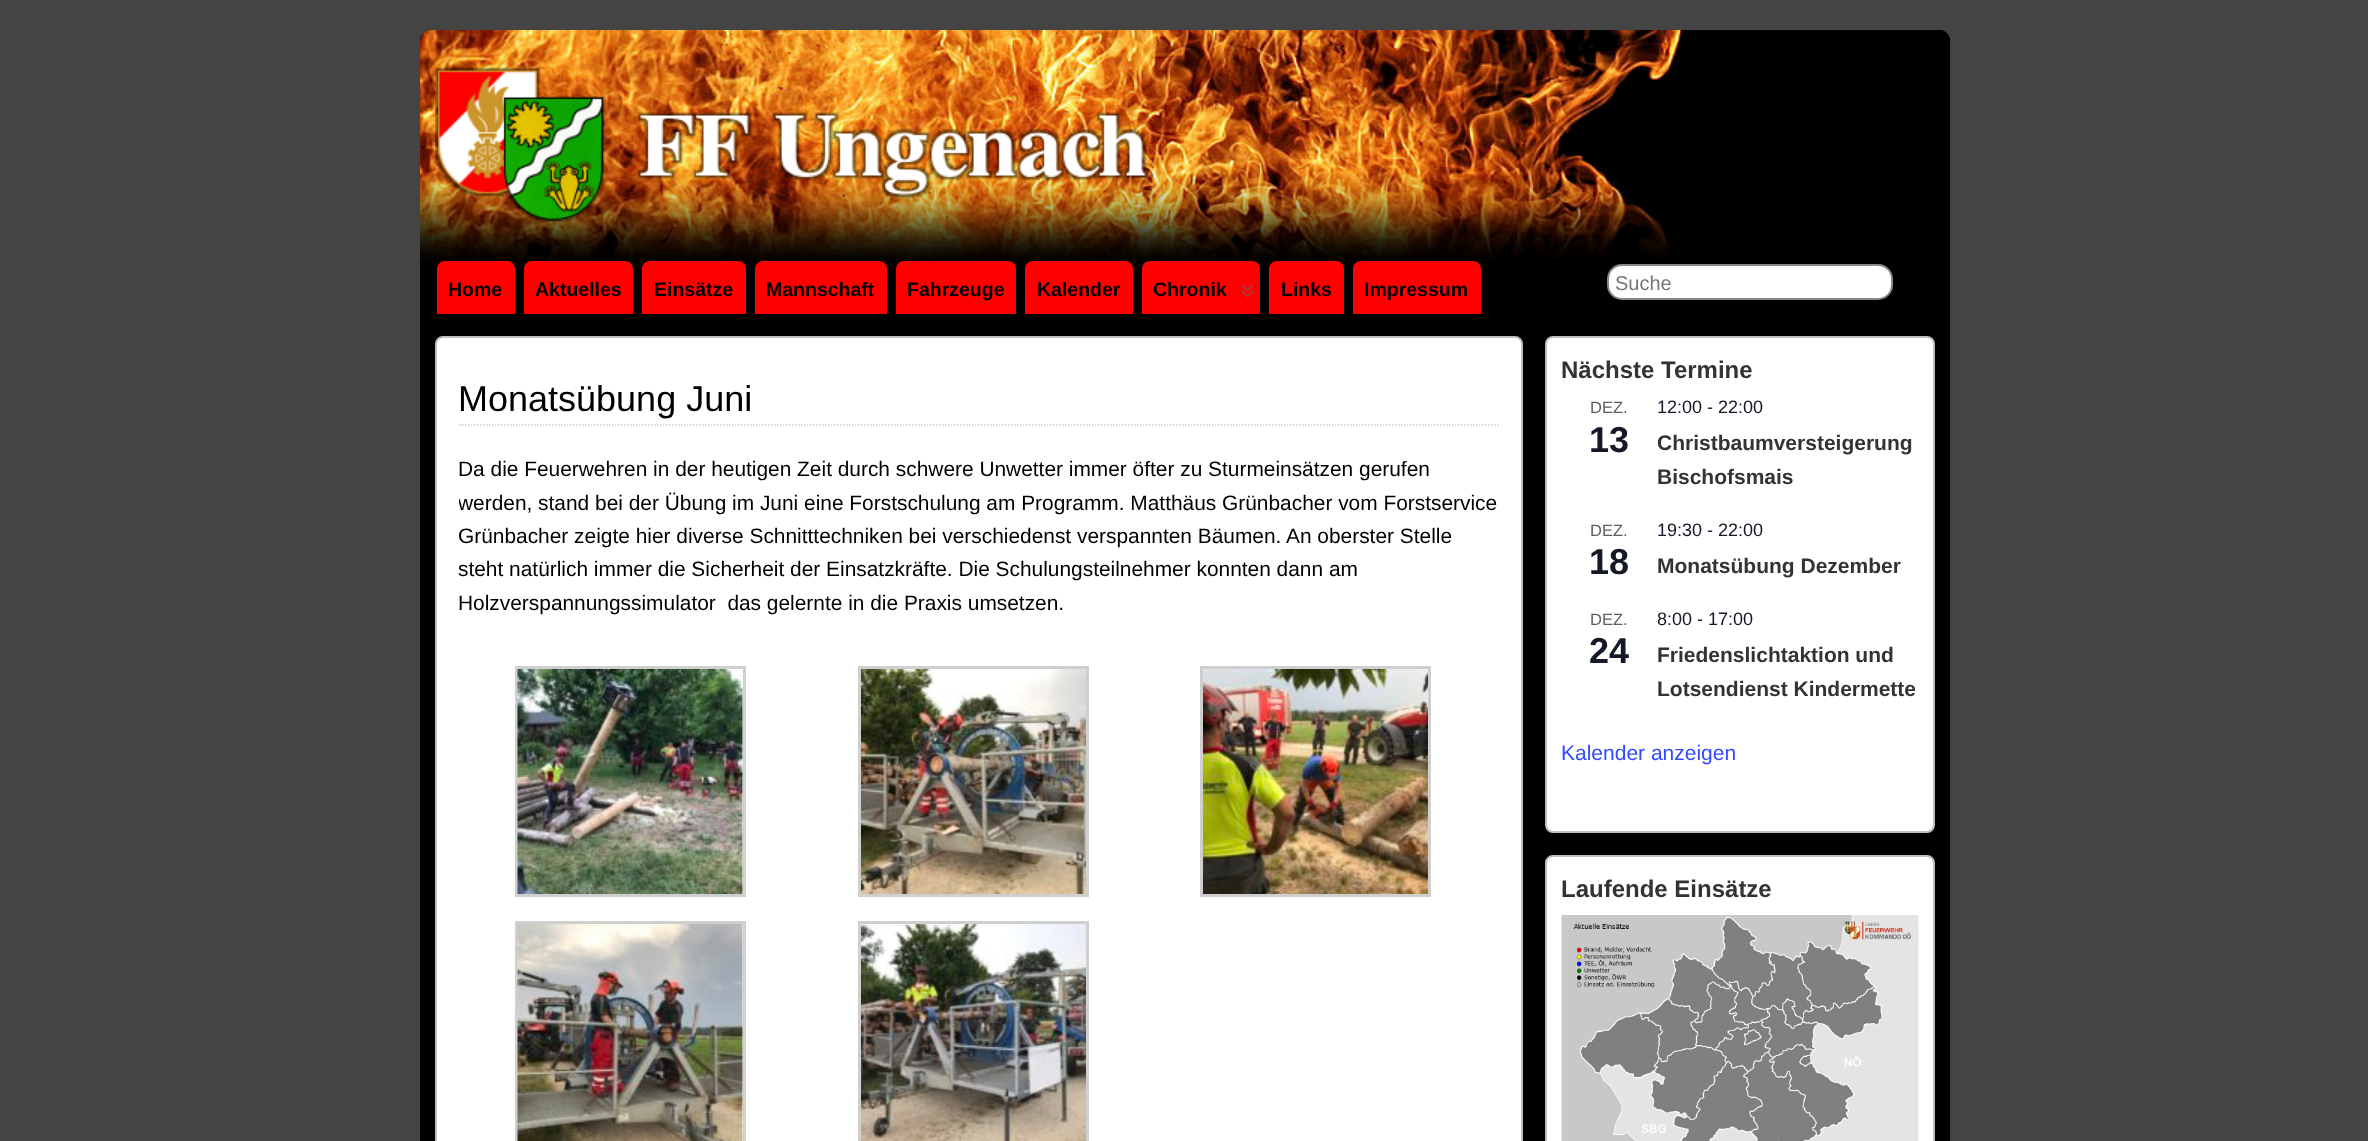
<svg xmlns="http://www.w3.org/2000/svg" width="2368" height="1141">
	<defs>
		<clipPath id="clip1"><rect x="459" y="429" width="1040" height="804" /></clipPath>
	</defs>
	<rect width="100%" height="100%" fill="#444444" />
	<rect x="420" y="30" width="1530" height="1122" rx="11" fill="#000000" />
	<image x="420" y="30" width="1530" height="230" href="assets/img1.png" />
	<image x="435" y="67" width="714" height="155" href="assets/img2.png" />
	<path d="M445 261H507C511.5 261 515 264.5 515 269V314H437V269C437 264.5 440.5 261 445 261Z" fill="#FF0000" />
	<text x="448" y="296" font-family="Liberation Sans" font-size="19.5" font-weight="700" fill="#000000">Home</text>
	<path d="M532 261H625C629.5 261 633 264.5 633 269V314H524V269C524 264.5 527.5 261 532 261Z" fill="#FF0000" />
	<text x="535" y="296" font-family="Liberation Sans" font-size="19.5" font-weight="700" fill="#000000">Aktuelles</text>
	<path d="M650 261H738C742.5 261 746 264.5 746 269V314H642V269C642 264.5 645.5 261 650 261Z" fill="#FF0000" />
	<text x="654" y="296" font-family="Liberation Sans" font-size="19.5" font-weight="700" fill="#000000">Einsätze</text>
	<path d="M763 261H879C883.5 261 887 264.5 887 269V314H755V269C755 264.5 758.5 261 763 261Z" fill="#FF0000" />
	<text x="766" y="296" font-family="Liberation Sans" font-size="19.5" font-weight="700" fill="#000000">Mannschaft</text>
	<path d="M904 261H1008C1012.5 261 1016 264.5 1016 269V314H896V269C896 264.5 899.5 261 904 261Z" fill="#FF0000" />
	<text x="907" y="296" font-family="Liberation Sans" font-size="19.5" font-weight="700" fill="#000000">Fahrzeuge</text>
	<path d="M1033 261H1125C1129.5 261 1133 264.5 1133 269V314H1025V269C1025 264.5 1028.5 261 1033 261Z" fill="#FF0000" />
	<text x="1037" y="296" font-family="Liberation Sans" font-size="19.5" font-weight="700" fill="#000000">Kalender</text>
	<path d="M1150 261H1252C1256.5 261 1260 264.5 1260 269V314H1142V269C1142 264.5 1145.5 261 1150 261Z" fill="#FF0000" />
	<text x="1153" y="296" font-family="Liberation Sans" font-size="19.5" font-weight="700" fill="#000000">Chronik</text>
	<image x="1242" y="285" width="11" height="12" href="assets/img3.png" />
	<path d="M1277 261H1336C1340.5 261 1344 264.5 1344 269V314H1269V269C1269 264.5 1272.5 261 1277 261Z" fill="#FF0000" />
	<text x="1281" y="296" font-family="Liberation Sans" font-size="19.5" font-weight="700" fill="#000000">Links</text>
	<path d="M1361 261H1473C1477.5 261 1481 264.5 1481 269V314H1353V269C1353 264.5 1356.5 261 1361 261Z" fill="#FF0000" />
	<text x="1364" y="296" font-family="Liberation Sans" font-size="19.5" font-weight="700" fill="#000000">Impressum</text>
	<rect x="1608" y="265" width="284" height="34" rx="14" fill="#FFFFFF" stroke="#888888" stroke-width="2" />
	<text x="1615" y="290" font-family="Liberation Sans" font-size="20" fill="#757575">Suche</text>
	<rect x="436" y="337" width="1086" height="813" rx="7" fill="#FFFFFF" stroke="#C0C0C0" stroke-width="2" />
	<path d="M459 425H1498.5" fill="none" stroke="#CCCCCC" stroke-width="1.5" stroke-dasharray="1.5 1.5" />
	<text x="458" y="411" font-family="Liberation Sans" font-size="36" fill="#000000">Monatsübung Juni</text>
	<text x="458" y="476" font-family="Liberation Sans" font-size="20.9" fill="#000000">Da die Feuerwehren in der heutigen Zeit durch schwere Unwetter immer öfter zu Sturmeinsätzen gerufen</text>
	<g clip-path="url(#clip1)">
		<text x="458" y="510" font-family="Liberation Sans" font-size="20.9" fill="#000000">werden, stand bei der Übung im Juni eine Forstschulung am Programm. Matthäus Grünbacher vom Forstservice</text>
	</g>
	<g font-family="Liberation Sans" font-size="20.9" fill="#000000">
		<text x="458" y="543">Grünbacher zeigte hier diverse Schnitttechniken bei verschiedenst verspannten Bäumen. An oberster Stelle</text>
		<text x="458" y="576">steht natürlich immer die Sicherheit der Einsatzkräfte. Die Schulungsteilnehmer konnten dann am</text>
		<text x="458" y="610" xml:space="preserve">Holzverspannungssimulator  das gelernte in die Praxis umsetzen.</text>
	</g>
	<rect x="516.5" y="667.5" width="228" height="228" fill="none" stroke="#CFCFCF" stroke-width="3" />
	<image x="517" y="669" width="226" height="225" href="assets/img4.png" />
	<rect x="859.5" y="667.5" width="228" height="228" fill="none" stroke="#CFCFCF" stroke-width="3" />
	<image x="861" y="669" width="225" height="225" href="assets/img5.png" />
	<rect x="1201.5" y="667.5" width="228" height="228" fill="none" stroke="#CFCFCF" stroke-width="3" />
	<image x="1203" y="669" width="225" height="225" href="assets/img6.png" />
	<rect x="516.5" y="922.5" width="228" height="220" fill="none" stroke="#CFCFCF" stroke-width="3" />
	<image x="517" y="924" width="226" height="217" href="assets/img7.png" />
	<rect x="859.5" y="922.5" width="228" height="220" fill="none" stroke="#CFCFCF" stroke-width="3" />
	<image x="861" y="924" width="225" height="217" href="assets/img8.png" />
	<rect x="1546" y="337" width="388" height="495" rx="7" fill="#FFFFFF" stroke="#C0C0C0" stroke-width="2" />
	<text x="1561" y="378" font-family="Liberation Sans" font-size="24" font-weight="700" fill="#333333">Nächste Termine</text>
	<text x="1590" y="413" font-family="Liberation Sans" font-size="16.5" fill="#5D5D5D">DEZ.</text>
	<text x="1589" y="452" font-family="Liberation Sans" font-size="36" font-weight="700" fill="#141827">13</text>
	<text x="1657" y="413" font-family="Liberation Sans" font-size="18" fill="#141827">12:00 - 22:00</text>
	<g font-family="Liberation Sans" font-size="21" font-weight="700" fill="#333333">
		<text x="1657" y="450">Christbaumversteigerung</text>
		<text x="1657" y="484">Bischofsmais</text>
	</g>
	<text x="1590" y="536" font-family="Liberation Sans" font-size="16.5" fill="#5D5D5D">DEZ.</text>
	<text x="1589" y="574" font-family="Liberation Sans" font-size="36" font-weight="700" fill="#141827">18</text>
	<text x="1657" y="536" font-family="Liberation Sans" font-size="18" fill="#141827">19:30 - 22:00</text>
	<text x="1657" y="573" font-family="Liberation Sans" font-size="21" font-weight="700" fill="#333333">Monatsübung Dezember</text>
	<text x="1590" y="625" font-family="Liberation Sans" font-size="16.5" fill="#5D5D5D">DEZ.</text>
	<text x="1589" y="663" font-family="Liberation Sans" font-size="36" font-weight="700" fill="#141827">24</text>
	<text x="1657" y="625" font-family="Liberation Sans" font-size="18" fill="#141827">8:00 - 17:00</text>
	<g font-family="Liberation Sans" font-size="21" font-weight="700" fill="#333333">
		<text x="1657" y="662">Friedenslichtaktion und</text>
		<text x="1657" y="696">Lotsendienst Kindermette</text>
	</g>
	<text x="1561" y="760" font-family="Liberation Sans" font-size="21" fill="#334AFF">Kalender anzeigen</text>
	<rect x="1546" y="856" width="388" height="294" rx="7" fill="#FFFFFF" stroke="#C0C0C0" stroke-width="2" />
	<text x="1561" y="897" font-family="Liberation Sans" font-size="24" font-weight="700" fill="#333333">Laufende Einsätze</text>
	<image x="1561" y="915" width="358" height="226" href="assets/img9.png" />
</svg>
